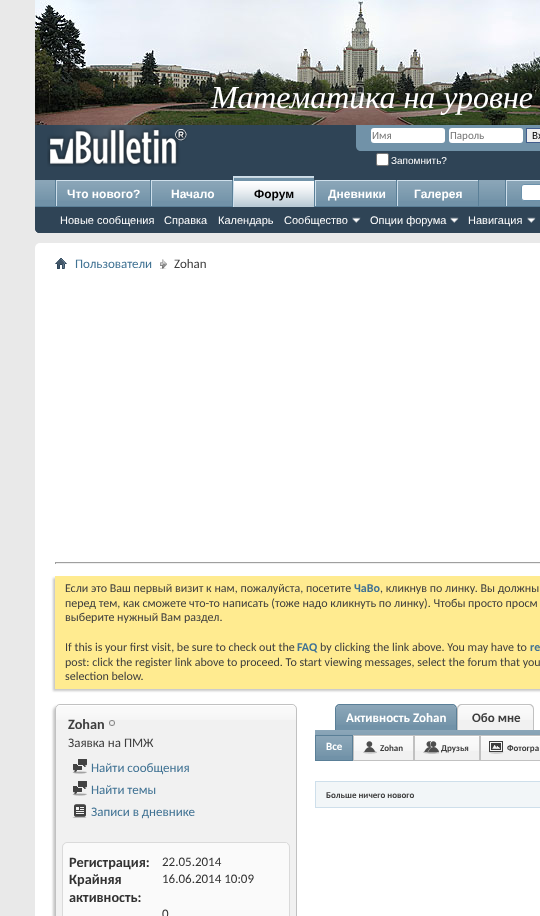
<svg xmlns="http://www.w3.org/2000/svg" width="540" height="916">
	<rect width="100%" height="100%" fill="#E9E9E9" />
	<path d="M35 0H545V228C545 231 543 233 540 233H40C37 233 35 231 35 228Z" fill="#2F4456" />
	<image x="35" y="0" width="505" height="125" href="assets/img1.png" />
	<text x="211" y="108" font-family="Liberation Serif" font-size="32" font-style="italic" fill="#FFFFFF">Математика на уровне</text>
	<image x="47" y="125" width="140" height="42" href="assets/img2.png" />
	<path d="M356 125H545V146C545 149 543 151 540 151H361C358 151 356 149 356 146Z" fill="#7192A8" />
	<rect x="371" y="128" width="74" height="15" rx="3" fill="#FFFFFF" />
	<text x="372" y="139" font-family="Carlito" font-size="11" fill="#777777">Имя</text>
	<rect x="449" y="128" width="74" height="15" rx="3" fill="#FFFFFF" />
	<text x="450" y="139" font-family="Carlito" font-size="11" fill="#777777">Пароль</text>
	<rect x="526.5" y="128.5" width="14" height="14" fill="#EFEFEF" stroke="#415D8D" />
	<text x="532" y="139" font-family="Carlito" font-size="11" fill="#000000">Вх</text>
	<rect x="376.5" y="153.5" width="12" height="12" rx="1.5" fill="#FFFFFF" stroke="#767676" />
	<text x="391" y="164" font-family="Liberation Sans" font-size="10" fill="#FFFFFF">Запомнить?</text>
	<path d="M35 180H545V228C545 231 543 233 540 233H40C37 233 35 231 35 228Z" fill="#2F4456" />
	<rect x="35" y="180" width="505" height="26" fill="#7192A8" />
	<image x="35" y="180" width="505" height="20" href="assets/img3.png" />
	<rect x="150" y="180" width="1" height="27" fill="#5A7F97" />
	<rect x="55" y="180" width="1" height="27" fill="#5A7F97" />
	<rect x="57" y="181" width="93" height="19" fill="#7192A8" />
	<image x="57" y="181" width="93" height="20" href="assets/img4.png" />
	<rect x="56" y="180" width="94" height="1" fill="#CEDFEB" />
	<rect x="56" y="180" width="1" height="27" fill="#CEDFEB" />
	<text x="67" y="198" font-family="Liberation Sans" font-size="12" font-weight="700" fill="#FFFFFF">Что нового?</text>
	<rect x="232" y="180" width="1" height="27" fill="#5A7F97" />
	<rect x="152" y="181" width="80" height="19" fill="#7192A8" />
	<image x="152" y="181" width="80" height="20" href="assets/img5.png" />
	<rect x="151" y="180" width="81" height="1" fill="#CEDFEB" />
	<rect x="151" y="180" width="1" height="27" fill="#CEDFEB" />
	<text x="171" y="198" font-family="Liberation Sans" font-size="12" font-weight="700" fill="#FFFFFF">Начало</text>
	<rect x="314" y="180" width="1" height="26" fill="#5A7F97" />
	<rect x="396" y="180" width="1" height="27" fill="#5A7F97" />
	<rect x="315" y="180" width="81" height="1" fill="#CEDFEB" />
	<rect x="315" y="180" width="1" height="27" fill="#CEDFEB" />
	<rect x="478" y="180" width="1" height="27" fill="#5A7F97" />
	<rect x="397" y="180" width="81" height="1" fill="#CEDFEB" />
	<rect x="397" y="180" width="1" height="27" fill="#CEDFEB" />
	<rect x="35" y="206" width="505" height="1" fill="#5A7F97" />
	<rect x="234" y="177" width="80" height="30" fill="#7192A8" />
	<image x="234" y="177" width="80" height="30" href="assets/img6.png" />
	<rect x="233" y="176" width="81" height="1" fill="#CEDFEB" />
	<rect x="233" y="176" width="1" height="31" fill="#CEDFEB" />
	<text x="254" y="198" font-family="Liberation Sans" font-size="12" font-weight="700" fill="#000000">Форум</text>
	<rect x="316" y="181" width="80" height="19" fill="#7192A8" />
	<image x="316" y="181" width="80" height="20" href="assets/img5.png" />
	<text x="328" y="198" font-family="Liberation Sans" font-size="12" font-weight="700" fill="#FFFFFF">Дневники</text>
	<rect x="398" y="181" width="80" height="19" fill="#7192A8" />
	<image x="398" y="181" width="80" height="20" href="assets/img5.png" />
	<text x="414" y="198" font-family="Liberation Sans" font-size="12" font-weight="700" fill="#FFFFFF">Галерея</text>
	<g font-family="Liberation Sans" font-size="11" fill="#FFFFFF">
		<text x="60" y="224">Новые сообщения</text>
		<text x="164" y="224">Справка</text>
		<text x="218" y="224">Календарь</text>
		<text x="284" y="224">Сообщество</text>
	</g>
	<image x="352" y="217" width="9" height="6" href="assets/img7.png" />
	<text x="370" y="224" font-family="Liberation Sans" font-size="11" fill="#FFFFFF">Опции форума</text>
	<image x="450" y="217" width="9" height="6" href="assets/img7.png" />
	<text x="468" y="224" font-family="Liberation Sans" font-size="11" fill="#FFFFFF">Навигация</text>
	<image x="527" y="217" width="9" height="6" href="assets/img7.png" />
	<rect x="505" y="180" width="1" height="26" fill="#5A7F97" />
	<rect x="506" y="180" width="34" height="1" fill="#CEDFEB" />
	<rect x="506" y="180" width="1" height="26" fill="#CEDFEB" />
	<rect x="521.5" y="184.5" width="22" height="16" rx="2.5" fill="#FFFFFF" stroke="#6B91AB" />
	<rect x="35" y="243" width="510" height="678" rx="5" fill="#FFFFFF" />
	<image x="55" y="258" width="12" height="11" href="assets/img8.png" />
	<image x="160" y="259" width="7" height="10" href="assets/img9.png" />
	<text x="75" y="268" font-family="Carlito" font-size="13" fill="#417394">Пользователи</text>
	<text x="174" y="268" font-family="Carlito" font-size="13" fill="#3E3E3E">Zohan</text>
	<rect x="55" y="562" width="485" height="1" fill="#9F9F9F" />
	<rect x="55" y="563" width="485" height="1" fill="#EEEEEE" />
	<rect x="55" y="562" width="1" height="2" fill="#9F9F9F" />
	<rect x="53" y="578" width="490" height="113" fill="#C8C8C8" filter="blur(1px)" />
	<rect x="55" y="576" width="485" height="113" fill="#FFEB90" />
	<text x="65" y="592" font-family="Carlito" font-size="12" fill="#3E3E3E">Если это Ваш первый визит к нам, пожалуйста, посетите</text>
	<text x="354" y="592" font-family="Carlito" font-size="12" font-weight="700" fill="#417394">ЧаВо</text>
	<g font-family="Carlito" font-size="12" fill="#3E3E3E">
		<text x="380" y="592">, кликнув по линку. Вы должны</text>
		<text x="65" y="607">перед тем, как сможете что-то написать (тоже надо кликнуть по линку). Чтобы просто просм</text>
		<text x="65" y="621">выберите нужный Вам раздел.</text>
		<text x="65" y="651">If this is your first visit, be sure to check out the</text>
	</g>
	<text x="297" y="651" font-family="Carlito" font-size="12" font-weight="700" fill="#417394">FAQ</text>
	<text x="320" y="651" font-family="Carlito" font-size="12" fill="#3E3E3E">by clicking the link above. You may have to</text>
	<text x="530" y="651" font-family="Carlito" font-size="12" font-weight="700" fill="#417394">re</text>
	<g font-family="Carlito" font-size="12" fill="#3E3E3E">
		<text x="65" y="666">post: click the register link above to proceed. To start viewing messages, select the forum that you</text>
		<text x="65" y="680">selection below.</text>
	</g>
	<rect x="53" y="706" width="242" height="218" rx="5" fill="#C8C8C8" filter="blur(1px)" />
	<rect x="55" y="704" width="242" height="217" rx="5" fill="#F1F1F1" />
	<image x="55" y="705" width="242" height="15" href="assets/img10.png" />
	<rect x="55.5" y="704.5" width="241" height="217" rx="4.5" fill="none" stroke="#C1C1C1" />
	<image x="58" y="705" width="236" height="1" href="assets/img11.png" />
	<text x="68" y="729" font-family="Carlito" font-size="14.25" font-weight="700" fill="#3E3E3E">Zohan</text>
	<image x="109" y="720" width="6" height="6" href="assets/img12.png" />
	<text x="68" y="747" font-family="Carlito" font-size="13" fill="#3E3E3E">Заявка на ПМЖ</text>
	<image x="72" y="759" width="15" height="15" href="assets/img13.png" />
	<text x="91" y="772" font-family="Carlito" font-size="13" fill="#417394">Найти сообщения</text>
	<image x="72" y="781" width="15" height="15" href="assets/img13.png" />
	<text x="91" y="794" font-family="Carlito" font-size="13" fill="#417394">Найти темы</text>
	<image x="72" y="804" width="15" height="14" href="assets/img14.png" />
	<text x="91" y="816" font-family="Carlito" font-size="13" fill="#417394">Записи в дневнике</text>
	<rect x="62.5" y="842.5" width="227" height="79" rx="4.5" fill="none" stroke="#DADADA" />
	<rect x="63" y="843" width="226" height="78" rx="5" fill="#FAFAFA" />
	<rect x="286" y="843" width="1" height="1" fill="#FAFAFA" />
	<text x="69" y="867" font-family="Carlito" font-size="14.25" font-weight="700" fill="#333333">Регистрация:</text>
	<text x="162" y="866" font-family="Carlito" font-size="13" fill="#333333">22.05.2014</text>
	<g font-family="Carlito" font-size="14.25" font-weight="700" fill="#333333">
		<text x="69" y="884">Крайняя</text>
		<text x="69" y="902">активность:</text>
	</g>
	<g font-family="Carlito" font-size="13" fill="#333333">
		<text x="162" y="883">16.06.2014 10:09</text>
		<text x="162" y="918">0</text>
	</g>
	<path d="M340 705H452C454 705 456 707 456 709V730H336V709C336 707 338 705 340 705Z" fill="#7192A8" />
	<image x="336" y="705" width="120" height="20" href="assets/img15.png" />
	<path d="M340 704H452C455 704 457 706 457 709V730H335V709C335 706 337 704 340 704ZM340 705H452C454 705 456 707 456 709V730H336V709C336 707 338 705 340 705Z" fill="#5A7F97" fill-rule="evenodd" />
	<text x="346" y="722" font-family="Carlito" font-size="13" font-weight="700" fill="#FFFFFF">Активность Zohan</text>
	<path d="M462 705H529C531 705 533 707 533 709V730H458V709C458 707 460 705 462 705Z" fill="#F1F1F1" />
	<image x="458" y="705" width="75" height="15" href="assets/img16.png" />
	<path d="M462 704H529C532 704 534 706 534 709V730H457V709C457 706 459 704 462 704ZM462 705H529C531 705 533 707 533 709V730H458V709C458 707 460 705 462 705Z" fill="#C1C1C1" fill-rule="evenodd" />
	<text x="472" y="722" font-family="Carlito" font-size="13" font-weight="700" fill="#3E3E3E">Обо мне</text>
	<rect x="315" y="730" width="225" height="5" fill="#7192A8" />
	<image x="315" y="730" width="225" height="5" href="assets/img17.png" />
	<rect x="354" y="737" width="186" height="23" fill="#F1F1F1" />
	<rect x="316" y="736" width="36" height="24" fill="#7192A8" />
	<image x="316" y="736" width="36" height="20" href="assets/img18.png" />
	<rect x="315.5" y="735.5" width="37" height="25" fill="none" stroke="#5A7F97" />
	<text x="326" y="750" font-family="Carlito" font-size="11" font-weight="700" fill="#FFFFFF">Все</text>
	<image x="354" y="736" width="59" height="15" href="assets/img19.png" />
	<rect x="353.5" y="735.5" width="60" height="25" fill="none" stroke="#C1C1C1" />
	<image x="363" y="741" width="14" height="13" href="assets/img20.png" />
	<text x="380" y="751" font-family="Carlito" font-size="9" font-weight="700" fill="#3E3E3E">Zohan</text>
	<image x="415" y="736" width="64" height="15" href="assets/img21.png" />
	<rect x="414.5" y="735.5" width="65" height="25" fill="none" stroke="#C1C1C1" />
	<image x="423" y="741" width="16" height="13" href="assets/img22.png" />
	<text x="441" y="751" font-family="Carlito" font-size="9" font-weight="700" fill="#3E3E3E">Друзья</text>
	<image x="481" y="736" width="59" height="15" href="assets/img19.png" />
	<rect x="480.5" y="735.5" width="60" height="25" fill="none" stroke="#C1C1C1" />
	<image x="489" y="741" width="15" height="13" href="assets/img23.png" />
	<text x="507" y="751" font-family="Carlito" font-size="9" font-weight="700" fill="#3E3E3E">Фотогра</text>
	<rect x="315.5" y="781.5" width="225" height="26" fill="#F2F6F8" stroke="#CEDFEB" />
	<text x="326" y="798" font-family="Carlito" font-size="9" font-weight="700" fill="#3E3E3E">Больше ничего нового</text>
</svg>
